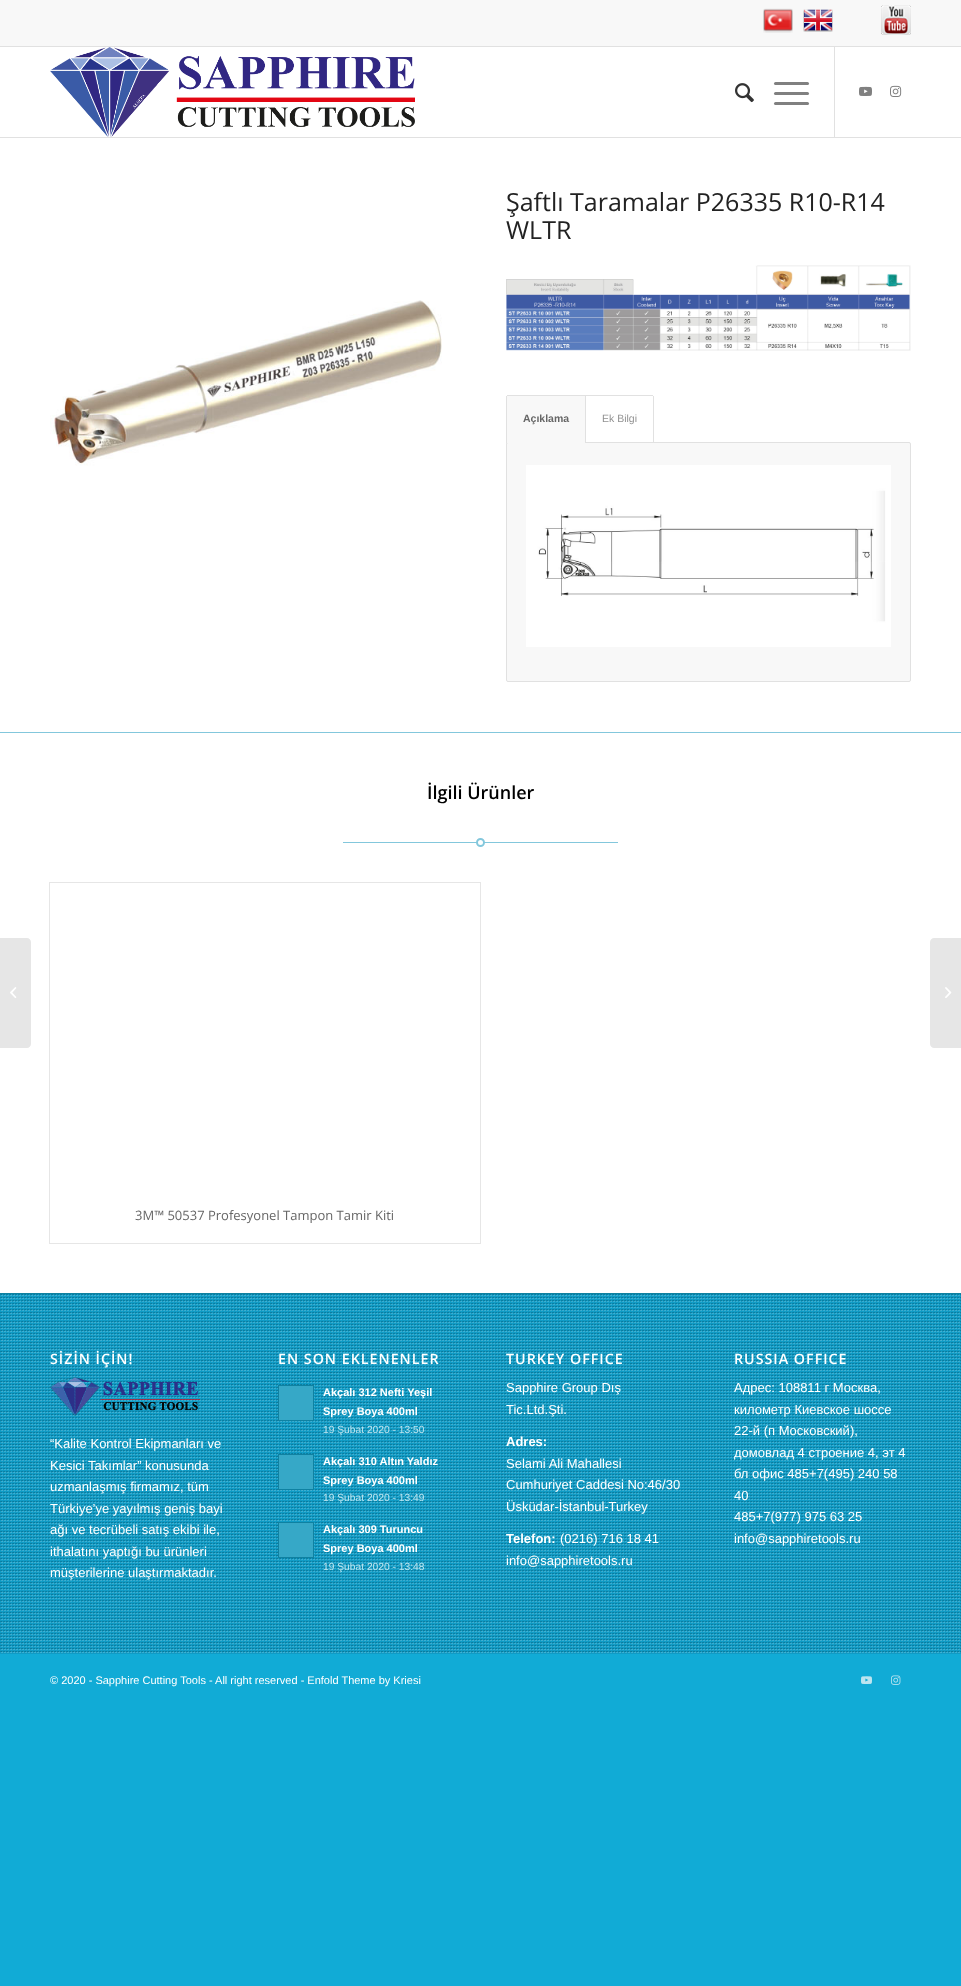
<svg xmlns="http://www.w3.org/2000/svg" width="961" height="1986">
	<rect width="100%" height="100%" fill="#11ABD6" />
	<rect x="0" y="47" width="961" height="1246" fill="#FFFFFF" />
	<rect x="0" y="0" width="961" height="46" fill="#F8F8F8" />
	<rect x="0" y="46" width="961" height="1" fill="#E1E1E1" />
	<image x="763" y="8" width="30" height="25" href="assets/img1.png" />
	<image x="803" y="9" width="30" height="23" href="assets/img2.png" />
	<image x="881" y="5" width="30" height="30" href="assets/img3.png" />
	<rect x="0" y="137" width="961" height="1" fill="#E1E1E1" />
	<image x="50" y="47" width="365" height="90" href="assets/img4.png" />
	<rect x="834" y="47" width="1" height="90" fill="#E1E1E1" />
	<image x="735" y="83" width="19" height="20" href="assets/img5.png" />
	<rect x="774" y="92" width="35" height="3" rx="1.5" fill="#808080" />
	<rect x="774" y="82" width="35" height="3" rx="1.5" fill="#808080" />
	<rect x="774" y="102" width="35" height="3" rx="1.5" fill="#808080" />
	<image x="859" y="86" width="13" height="10" href="assets/img6.png" />
	<image x="890" y="85" width="12" height="12" href="assets/img7.png" />
	<path d="M0 938H27C29 938 31 940 31 942V1044C31 1046 29 1048 27 1048H0Z" fill="#E6E6E6" />
	<image x="10" y="987" width="7" height="11" href="assets/img8.png" />
	<image x="50" y="300" width="392" height="166" href="assets/img9.png" />
	<g font-family="Open Sans" font-size="25" fill="#222222">
		<text x="506" y="211">Şaftlı Taramalar P26335 R10-R14</text>
		<text x="506" y="239">WLTR</text>
	</g>
	<image x="506" y="265" width="405" height="86" href="assets/img10.png" />
	<rect x="585" y="395" width="68" height="1" fill="#E1E1E1" />
	<rect x="506.5" y="442.5" width="404" height="239" rx="1.5" fill="#F8F8F8" stroke="#E1E1E1" />
	<path d="M508 395H586V443H506V397C506 396 507 395 508 395Z" fill="#F8F8F8" />
	<rect x="507" y="395" width="79" height="1" fill="#E1E1E1" />
	<rect x="585" y="395" width="1" height="48" fill="#E1E1E1" />
	<rect x="506" y="396" width="1" height="47" fill="#E1E1E1" />
	<text x="523" y="422" font-family="Liberation Sans" font-size="10.5" font-weight="700" fill="#666666">Açıklama</text>
	<rect x="653" y="396" width="1" height="47" fill="#E1E1E1" />
	<text x="602" y="422" font-family="Liberation Sans" font-size="10.5" fill="#919191">Ek Bilgi</text>
	<image x="526" y="465" width="365" height="182" href="assets/img11.png" />
	<rect x="0" y="732" width="961" height="1" fill="#83C7DC" />
	<text x="427" y="799" font-family="Open Sans" font-size="18" font-weight="600" fill="#000000">İlgili Ürünler</text>
	<rect x="343" y="842" width="275" height="1" fill="#83C7DC" />
	<circle cx="480.5" cy="842.5" r="3.5" fill="#FFFFFF" stroke="#83C7DC" stroke-width="2" />
	<rect x="49.5" y="882.5" width="431" height="361" fill="none" stroke="#E6E6E6" />
	<text x="135" y="1220" font-family="Open Sans" font-size="13" fill="#666666">3M™ 50537 Profesyonel Tampon Tamir Kiti</text>
	<rect x="0" y="1294" width="961" height="360" fill="#109BC5" />
	<image x="0" y="1294" width="961" height="359" href="assets/img12.png" />
	<rect x="0" y="1293" width="961" height="1" fill="#0F81A1" />
	<text x="50" y="1364" font-family="Open Sans" font-size="14.25" font-weight="600" letter-spacing="1" fill="#FFFFFF">SİZİN İÇİN!</text>
	<image x="50" y="1377" width="150" height="39" href="assets/img13.png" />
	<g font-family="Liberation Sans" font-size="13" fill="#FFFFFF">
		<text x="50" y="1448">“Kalite Kontrol Ekipmanları ve</text>
		<text x="50" y="1470">Kesici Takımlar” konusunda</text>
		<text x="50" y="1491">uzmanlaşmış firmamız, tüm</text>
		<text x="50" y="1513">Türkiye’ye yayılmış geniş bayi</text>
		<text x="50" y="1534">ağı ve tecrübeli satış ekibi ile,</text>
		<text x="50" y="1556">ithalatını yaptığı bu ürünleri</text>
		<text x="50" y="1577">müşterilerine ulaştırmaktadır.</text>
	</g>
	<text x="278" y="1364" font-family="Open Sans" font-size="14.25" font-weight="600" letter-spacing="1" fill="#FFFFFF">EN SON EKLENENLER</text>
	<rect x="278.5" y="1385.5" width="35" height="35" fill="#36A8C7" stroke="#0F81A1" />
	<g font-family="Liberation Sans" font-size="11" font-weight="700" fill="#FFFFFF">
		<text x="323" y="1396">Akçalı 312 Nefti Yeşil</text>
		<text x="323" y="1415">Sprey Boya 400ml</text>
	</g>
	<text x="323" y="1433" font-family="Liberation Sans" font-size="10.25" fill="#BDE5F0">19 Şubat 2020 - 13:50</text>
	<rect x="278.5" y="1454.5" width="35" height="35" fill="#36A8C7" stroke="#0F81A1" />
	<g font-family="Liberation Sans" font-size="11" font-weight="700" fill="#FFFFFF">
		<text x="323" y="1465">Akçalı 310 Altın Yaldız</text>
		<text x="323" y="1484">Sprey Boya 400ml</text>
	</g>
	<text x="323" y="1501" font-family="Liberation Sans" font-size="10.25" fill="#BDE5F0">19 Şubat 2020 - 13:49</text>
	<rect x="278.5" y="1522.5" width="35" height="35" fill="#36A8C7" stroke="#0F81A1" />
	<g font-family="Liberation Sans" font-size="11" font-weight="700" fill="#FFFFFF">
		<text x="323" y="1533">Akçalı 309 Turuncu</text>
		<text x="323" y="1552">Sprey Boya 400ml</text>
	</g>
	<text x="323" y="1570" font-family="Liberation Sans" font-size="10.25" fill="#BDE5F0">19 Şubat 2020 - 13:48</text>
	<text x="506" y="1364" font-family="Open Sans" font-size="14.25" font-weight="600" letter-spacing="1" fill="#FFFFFF">TURKEY OFFICE</text>
	<g font-family="Liberation Sans" font-size="13" fill="#FFFFFF">
		<text x="506" y="1392">Sapphire Group Dış</text>
		<text x="506" y="1414">Tic.Ltd.Şti.</text>
	</g>
	<text x="506" y="1446" font-family="Liberation Sans" font-size="13" font-weight="700" fill="#FFFFFF">Adres:</text>
	<g font-family="Liberation Sans" font-size="13" fill="#FFFFFF">
		<text x="506" y="1468">Selami Ali Mahallesi</text>
		<text x="506" y="1489">Cumhuriyet Caddesi No:46/30</text>
		<text x="506" y="1511">Üsküdar-İstanbul-Turkey</text>
	</g>
	<text x="506" y="1543" font-family="Liberation Sans" font-size="13" font-weight="700" fill="#FFFFFF">Telefon:</text>
	<g font-family="Liberation Sans" font-size="13" fill="#FFFFFF">
		<text x="560" y="1543">(0216) 716 18 41</text>
		<text x="506" y="1565">info@sapphiretools.ru</text>
	</g>
	<text x="734" y="1364" font-family="Open Sans" font-size="14.25" font-weight="600" letter-spacing="1" fill="#FFFFFF">RUSSIA OFFICE</text>
	<g font-family="Liberation Sans" font-size="13" fill="#FFFFFF">
		<text x="734" y="1392">Адрес: 108811 г Москва,</text>
		<text x="734" y="1414">километр Киевское шоссе</text>
		<text x="734" y="1435">22-й (п Московский),</text>
		<text x="734" y="1457">домовлад 4 строение 4, эт 4</text>
		<text x="734" y="1478">бл офис 485+7(495) 240 58</text>
		<text x="734" y="1500">40</text>
		<text x="734" y="1521">485+7(977) 975 63 25</text>
		<text x="734" y="1543">info@sapphiretools.ru</text>
	</g>
	<text x="50" y="1684" font-family="Liberation Sans" font-size="11" fill="#FFFFFF">© 2020 - Sapphire Cutting Tools - All right reserved - Enfold Theme by Kriesi</text>
	<image x="861" y="1676" width="11" height="8" href="assets/img14.png" />
	<image x="891" y="1675" width="10" height="10" href="assets/img15.png" />
	<path d="M934 938H961V1048H934C932 1048 930 1046 930 1044V942C930 940 932 938 934 938Z" fill="#E6E6E6" />
	<image x="945" y="987" width="7" height="11" href="assets/img16.png" />
</svg>
